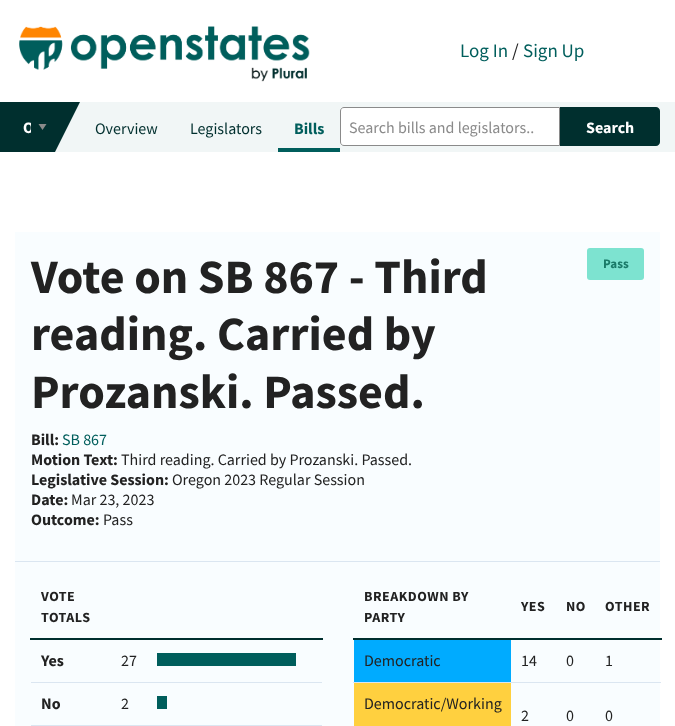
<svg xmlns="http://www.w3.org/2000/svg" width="675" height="726">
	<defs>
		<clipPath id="clip1"><rect x="23" y="115" width="8" height="24" /></clipPath>
	</defs>
	<rect width="100%" height="100%" fill="#FFFFFF" />
	<image x="19" y="26" width="291" height="56" href="assets/img1.png" />
	<text x="460" y="57" font-family="Source Sans Pro" font-size="19" fill="#005E5C">Log In</text>
	<text x="512" y="57" font-family="Source Sans Pro" font-size="19" fill="#222222">/</text>
	<text x="523" y="57" font-family="Source Sans Pro" font-size="19" fill="#005E5C">Sign Up</text>
	<rect x="0" y="102" width="55" height="50" fill="#002F2E" />
	<rect x="55" y="102" width="620" height="50" fill="#F1F6F6" />
	<path d="M38.5 124H46.5L42.5 130Z" fill="#8A8A8A" />
	<g clip-path="url(#clip1)">
		<text x="23" y="133" font-family="Source Sans Pro" font-size="16" font-weight="700" fill="#FFFFFF">O</text>
	</g>
	<path d="M55 152V102H80Z" fill="#002F2E" />
	<g font-family="Source Sans Pro" font-size="16" fill="#002F2E">
		<text x="95" y="134">Overview</text>
		<text x="190" y="134">Legislators</text>
	</g>
	<rect x="278" y="148" width="62" height="4" fill="#005E5C" />
	<text x="294" y="134" font-family="Source Sans Pro" font-size="16" font-weight="700" fill="#005E5C">Bills</text>
	<path d="M344 107.5H559.5V145.5H344C342 145.5 340.5 144 340.5 142V111C340.5 109 342 107.5 344 107.5Z" fill="#FFFFFF" stroke="#8A8A8A" />
	<text x="349" y="133" font-family="Source Sans Pro" font-size="16" fill="#8A8A8A">Search bills and legislators..</text>
	<path d="M561 108H656C657.5 108 659 109.5 659 111V142C659 143.5 657.5 145 656 145H561Z" fill="#002F2E" stroke="#002F2E" stroke-width="2" />
	<text x="586" y="133" font-family="Source Sans Pro" font-size="16" font-weight="700" fill="#FFFFFF">Search</text>
	<rect x="15" y="232" width="645" height="494" fill="#F9FDFF" />
	<g font-family="Source Sans Pro" font-size="48" font-weight="700" fill="#222222">
		<text x="31" y="293">Vote on SB 867 - Third</text>
		<text x="31" y="350">reading. Carried by</text>
		<text x="31" y="408">Prozanski. Passed.</text>
	</g>
	<rect x="587" y="248" width="57" height="32" rx="3" fill="#7DE3D0" />
	<text x="603" y="268" font-family="Source Sans Pro" font-size="13" font-weight="700" fill="#1A7A68">Pass</text>
	<text x="31" y="445" font-family="Source Sans Pro" font-size="16" font-weight="700" fill="#222222">Bill:</text>
	<text x="62" y="445" font-family="Source Sans Pro" font-size="16" fill="#005E5C">SB 867</text>
	<text x="31" y="465" font-family="Source Sans Pro" font-size="16" font-weight="700" fill="#222222">Motion Text:</text>
	<text x="121" y="465" font-family="Source Sans Pro" font-size="16" fill="#222222">Third reading. Carried by Prozanski. Passed.</text>
	<text x="31" y="485" font-family="Source Sans Pro" font-size="16" font-weight="700" fill="#222222">Legislative Session:</text>
	<text x="172" y="485" font-family="Source Sans Pro" font-size="16" fill="#222222">Oregon 2023 Regular Session</text>
	<text x="31" y="505" font-family="Source Sans Pro" font-size="16" font-weight="700" fill="#222222">Date:</text>
	<text x="71" y="505" font-family="Source Sans Pro" font-size="16" fill="#222222">Mar 23, 2023</text>
	<text x="31" y="525" font-family="Source Sans Pro" font-size="16" font-weight="700" fill="#222222">Outcome:</text>
	<text x="103" y="525" font-family="Source Sans Pro" font-size="16" fill="#222222">Pass</text>
	<rect x="15" y="561" width="645" height="1" fill="#DBE6F1" />
	<rect x="30" y="638" width="293" height="2" fill="#002F2E" />
	<g font-family="Source Sans Pro" font-size="14" font-weight="700" letter-spacing="0.5" fill="#222222">
		<text x="41" y="601">VOTE</text>
		<text x="41" y="622">TOTALS</text>
	</g>
	<rect x="31" y="682" width="291" height="1" fill="#DBE6F1" />
	<text x="41" y="666" font-family="Source Sans Pro" font-size="16" font-weight="700" fill="#222222">Yes</text>
	<text x="121" y="666" font-family="Source Sans Pro" font-size="16" fill="#222222">27</text>
	<rect x="157" y="653" width="139" height="13" fill="#005E5C" />
	<rect x="31" y="725" width="291" height="1" fill="#DBE6F1" />
	<text x="41" y="709" font-family="Source Sans Pro" font-size="16" font-weight="700" fill="#222222">No</text>
	<text x="121" y="709" font-family="Source Sans Pro" font-size="16" fill="#222222">2</text>
	<rect x="157" y="696" width="10" height="13" fill="#005E5C" />
	<rect x="353" y="638" width="309" height="2" fill="#002F2E" />
	<g font-family="Source Sans Pro" font-size="14" font-weight="700" letter-spacing="0.5" fill="#222222">
		<text x="364" y="601">BREAKDOWN BY</text>
		<text x="364" y="622">PARTY</text>
		<text x="521" y="611">YES</text>
		<text x="566" y="611">NO</text>
		<text x="605" y="611">OTHER</text>
	</g>
	<rect x="353" y="682" width="308" height="1" fill="#DBE6F1" />
	<rect x="354" y="640" width="157" height="42" fill="#00ABFF" />
	<g font-family="Source Sans Pro" font-size="16" fill="#222222">
		<text x="364" y="666">Democratic</text>
		<text x="521" y="666">14</text>
		<text x="566" y="666">0</text>
		<text x="605" y="666">1</text>
	</g>
	<rect x="354" y="683" width="157" height="43" fill="#FFD03F" />
	<g font-family="Source Sans Pro" font-size="16" fill="#222222">
		<text x="364" y="709">Democratic/Working</text>
		<text x="521" y="721">2</text>
		<text x="566" y="721">0</text>
		<text x="605" y="721">0</text>
	</g>
</svg>
